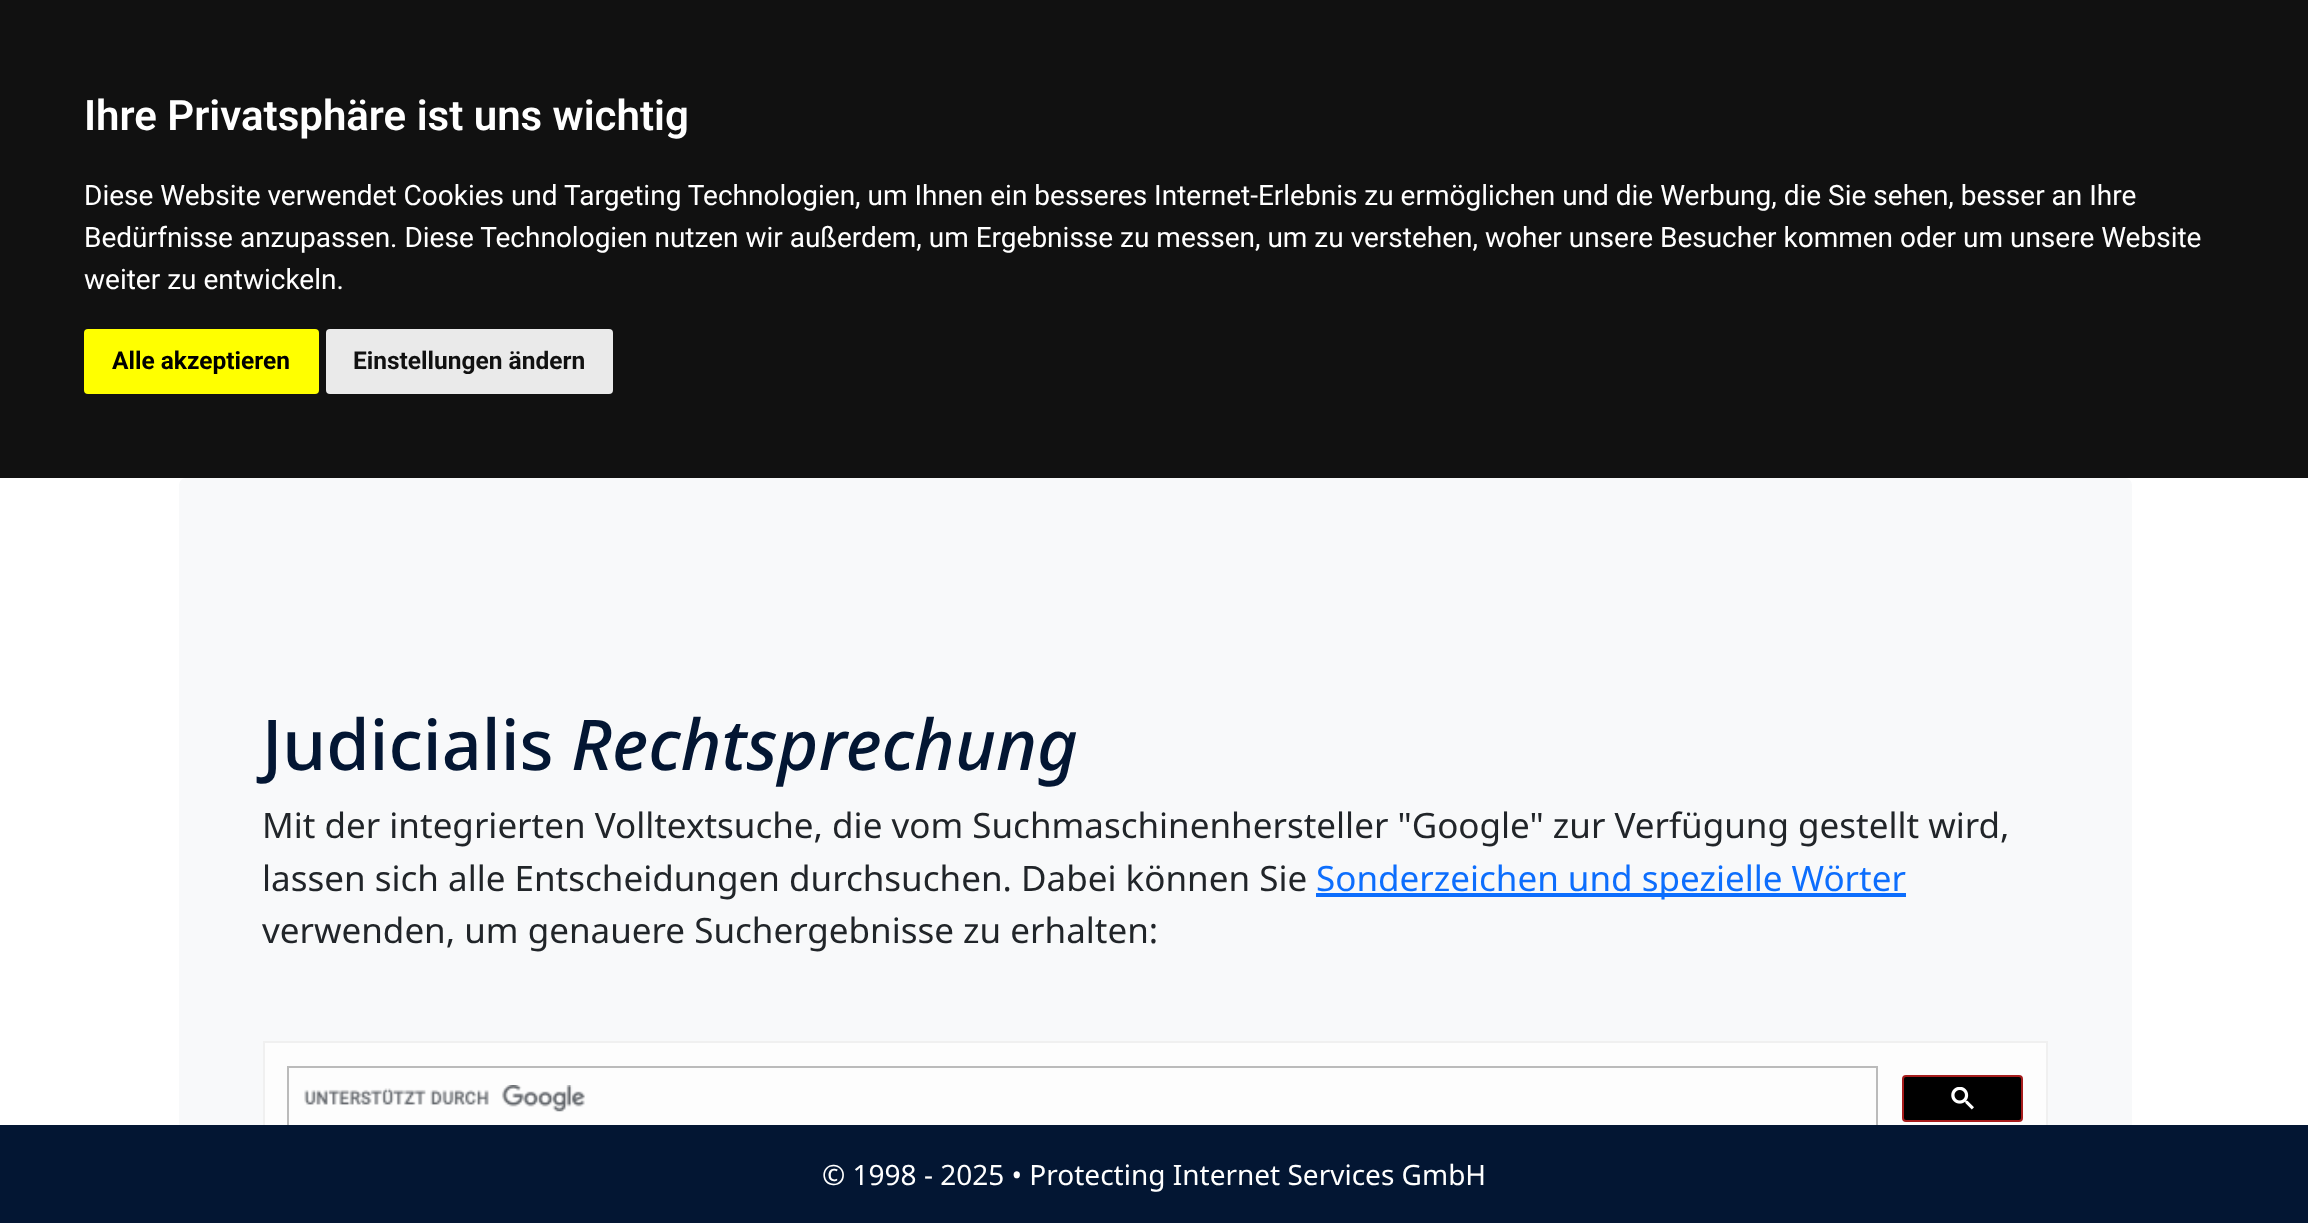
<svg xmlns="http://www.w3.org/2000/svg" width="2308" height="1223">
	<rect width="100%" height="100%" fill="#FFFFFF" />
	<rect x="0" y="0" width="2308" height="478" fill="#111111" />
	<text x="84" y="130" font-family="Roboto" font-size="42" font-weight="600" fill="#FFFFFF">Ihre Privatsphäre ist uns wichtig</text>
	<g font-family="Roboto" font-size="28" fill="#FFFFFF">
		<text x="84" y="205">Diese Website verwendet Cookies und Targeting Technologien, um Ihnen ein besseres Internet-Erlebnis zu ermöglichen und die Werbung, die Sie sehen, besser an Ihre</text>
		<text x="84" y="247">Bedürfnisse anzupassen. Diese Technologien nutzen wir außerdem, um Ergebnisse zu messen, um zu verstehen, woher unsere Besucher kommen oder um unsere Website</text>
		<text x="84" y="289">weiter zu entwickeln.</text>
	</g>
	<rect x="84" y="329" width="235" height="65" rx="4" fill="#FFFF00" />
	<text x="112" y="369" font-family="Roboto" font-size="24.5" font-weight="700" fill="#000000">Alle akzeptieren</text>
	<rect x="326" y="329" width="287" height="65" rx="4" fill="#EAEAEA" />
	<text x="353" y="369" font-family="Roboto" font-size="24.5" font-weight="700" fill="#111111">Einstellungen ändern</text>
	<rect x="179" y="478" width="1953" height="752" rx="7" fill="#F8F9FA" />
	<text x="262" y="770" font-family="Noto Sans" font-size="70" font-weight="500" fill="#031633">Judicialis</text>
	<text x="571" y="770" font-family="Noto Sans" font-size="70" font-weight="500" font-style="italic" fill="#031633">Rechtsprechung</text>
	<g font-family="Noto Sans" font-size="35" fill="#212529">
		<text x="262" y="838">Mit der integrierten Volltextsuche, die vom Suchmaschinenhersteller "Google" zur Verfügung gestellt wird,</text>
		<text x="262" y="891">lassen sich alle Entscheidungen durchsuchen. Dabei können Sie</text>
	</g>
	<rect x="1316" y="893" width="590" height="4" fill="#0D6EFD" />
	<text x="1316" y="891" font-family="Noto Sans" font-size="35" fill="#0D6EFD">Sonderzeichen und spezielle Wörter</text>
	<text x="262" y="943" font-family="Noto Sans" font-size="35" fill="#212529">verwenden, um genauere Suchergebnisse zu erhalten:</text>
	<rect x="265" y="1043" width="1781" height="82" fill="#FDFDFD" />
	<rect x="264" y="1042" width="1783" height="116" fill="none" stroke="#F0F0F0" stroke-width="2" />
	<rect x="288" y="1067" width="1589" height="59" fill="none" stroke="#BBBBBB" stroke-width="2" />
	<image x="304" y="1085" width="281" height="27" href="assets/img1.png" />
	<rect x="1903" y="1076" width="119" height="45" rx="3" fill="#000000" stroke="#A61C1C" stroke-width="2" />
	<image x="1951" y="1087" width="23" height="23" href="assets/img2.png" />
	<rect x="0" y="1125" width="2308" height="98" fill="#031633" />
	<text x="822" y="1185" font-family="Noto Sans" font-size="28" fill="#FFFFFF">© 1998 - 2025 • Protecting Internet Services GmbH</text>
</svg>
